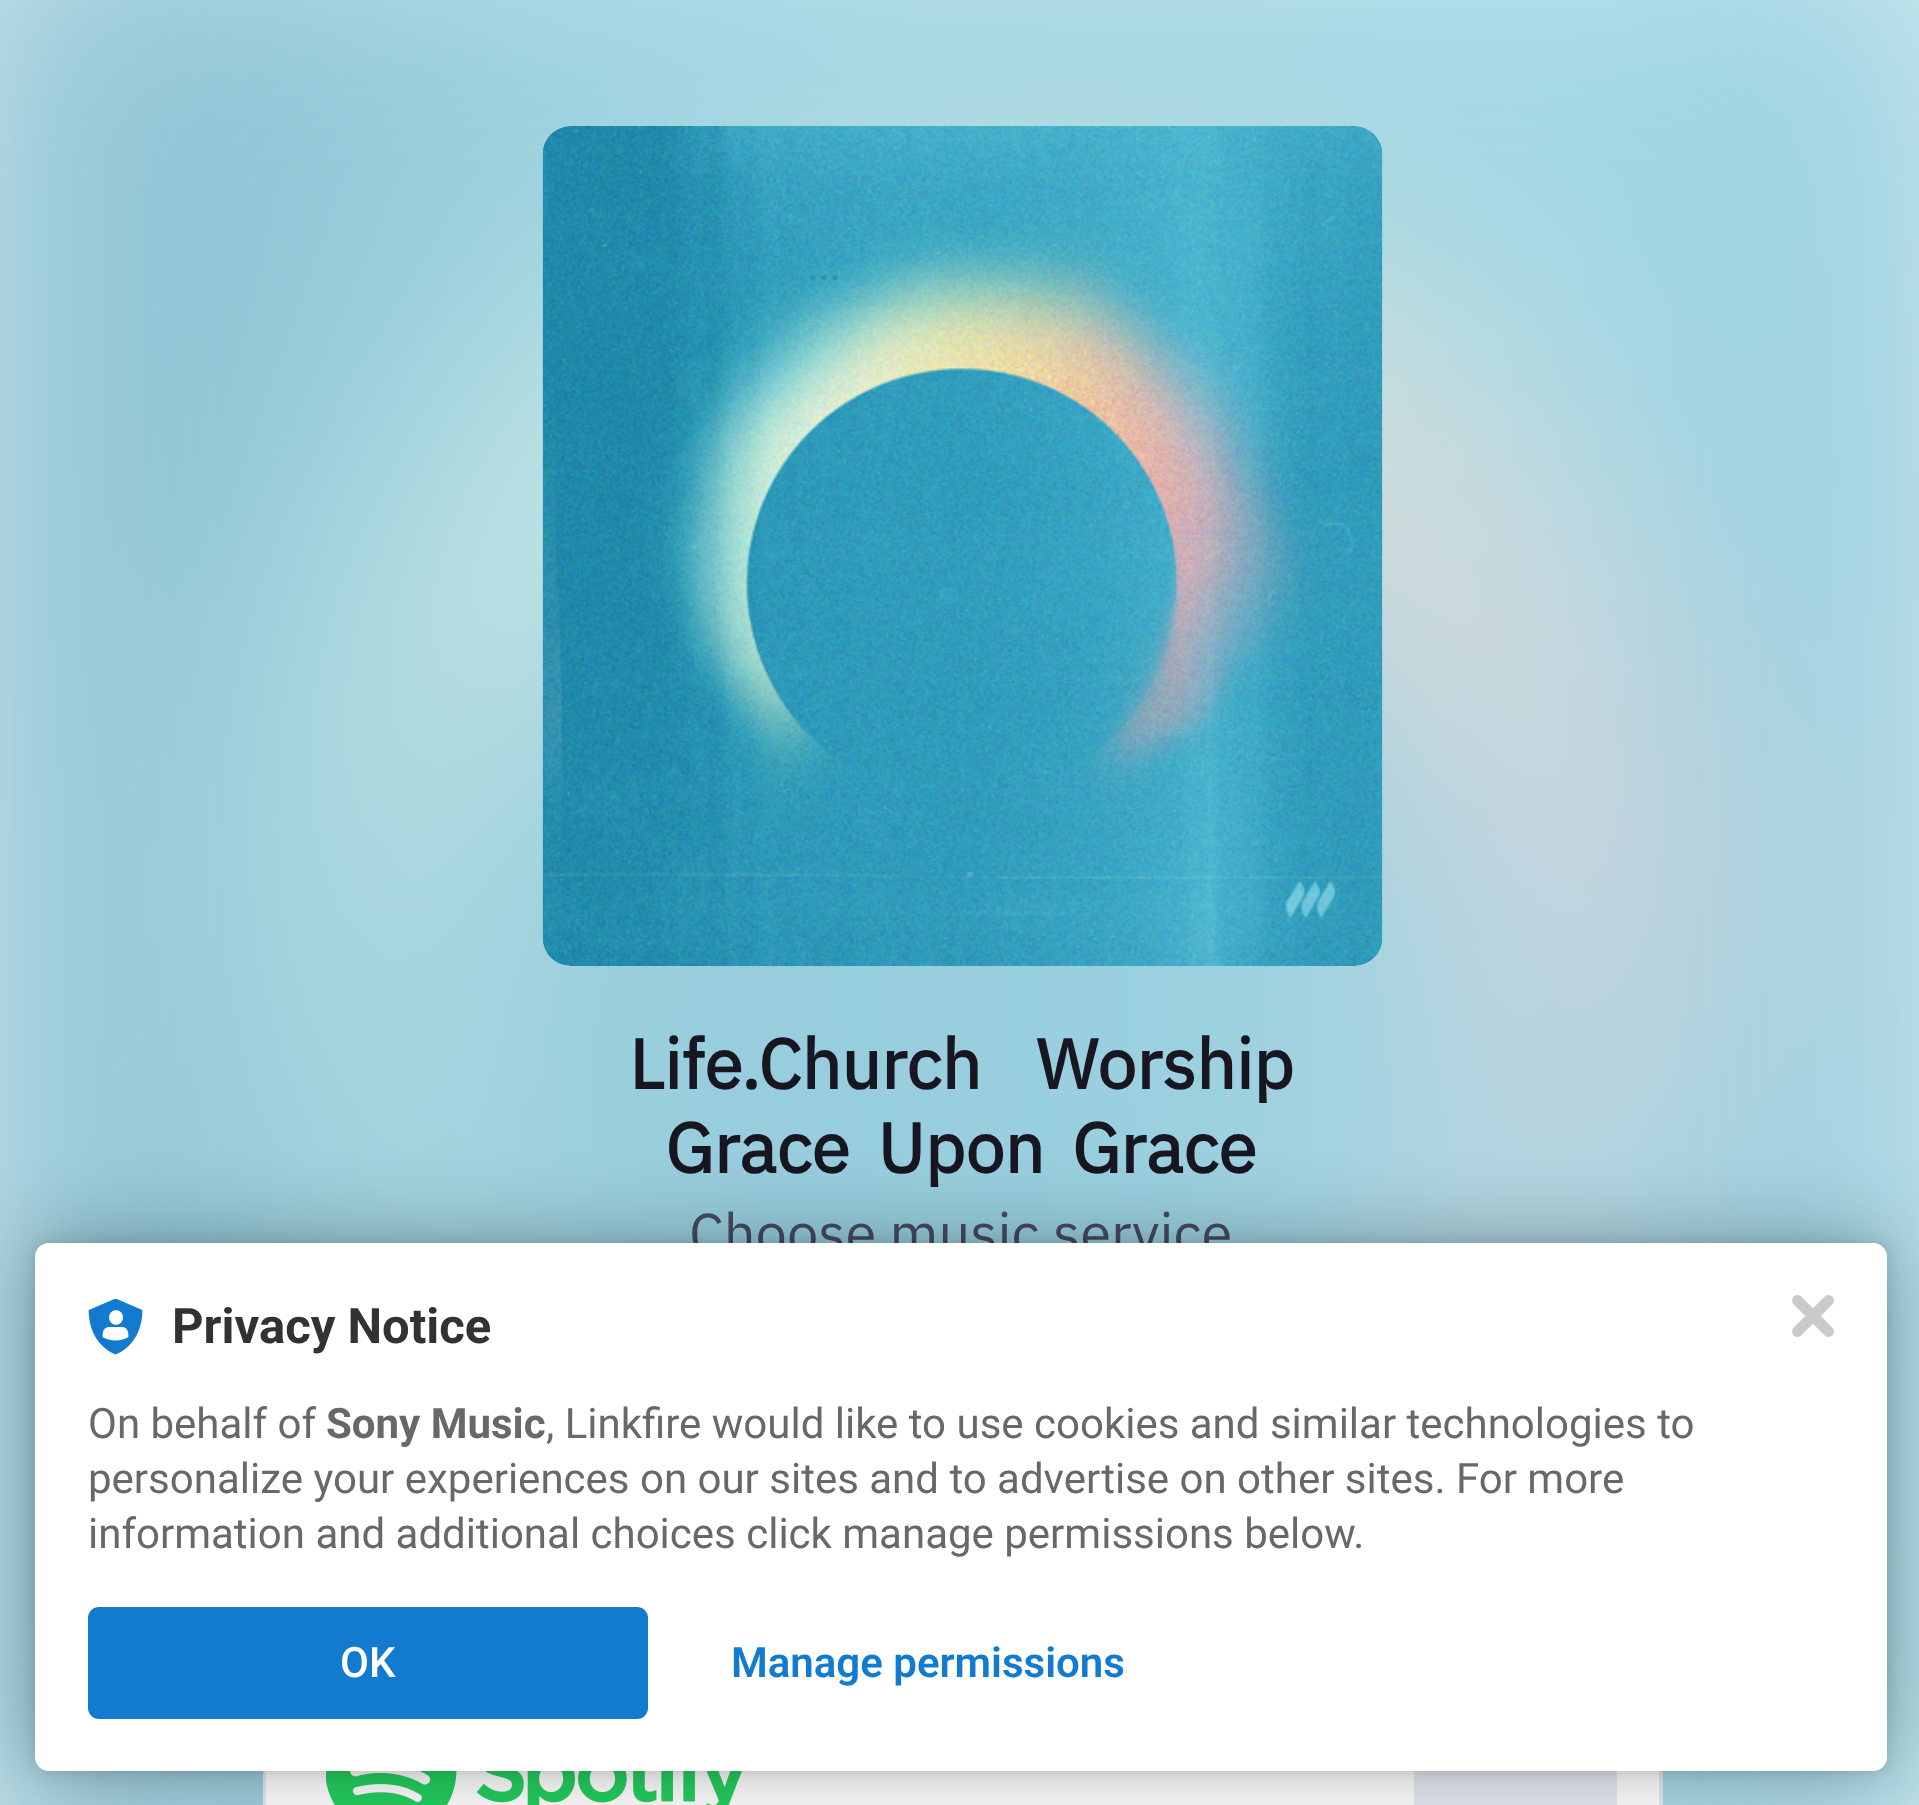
<svg xmlns="http://www.w3.org/2000/svg" width="1919" height="1805">
	<rect width="100%" height="100%" fill="#FFFFFF" />
	<image x="0" y="0" width="1919" height="1805" href="assets/img1.png" />
	<image x="542" y="126" width="841" height="840" href="assets/img2.png" />
	<text x="807" y="280" font-family="IBM Plex Sans" font-size="42" fill="#2793B3">…</text>
	<g font-family="IBM Plex Sans" font-size="70" font-weight="700" fill="#181721">
		<text x="629" y="1089" word-spacing="38">Life.Church Worship</text>
		<text x="665" y="1173" word-spacing="11">Grace Upon Grace</text>
	</g>
	<text x="689" y="1253" font-family="IBM Plex Sans" font-size="56" fill="#454B5F">Choose music service</text>
	<rect x="265" y="1388" width="1396" height="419" fill="none" stroke="#E6EAF2" stroke-width="4" />
	<rect x="266" y="1771" width="1393" height="34" fill="#FFFFFF" />
	<image x="326" y="1771" width="416" height="34" href="assets/img3.png" />
	<rect x="1414" y="1771" width="203" height="34" fill="#E6EAF2" />
	<rect x="35" y="1243" width="1852" height="528" rx="14" fill="#000000" fill-opacity="0.12" filter="blur(7px)" />
	<rect x="35" y="1243" width="1852" height="528" rx="14" fill="#000000" fill-opacity="0.3" filter="blur(42px)" />
	<rect x="35" y="1243" width="1852" height="528" rx="14" fill="#FFFFFF" />
	<image x="88" y="1299" width="55" height="56" href="assets/img4.png" />
	<text x="172" y="1343" font-family="Roboto" font-size="49" font-weight="700" fill="#323232">Privacy Notice</text>
	<text x="88" y="1438" font-family="Roboto" font-size="42" fill="#686868">On behalf of</text>
	<text x="326" y="1438" font-family="Roboto" font-size="42" font-weight="700" fill="#686868">Sony Music</text>
	<g font-family="Roboto" font-size="42" fill="#686868">
		<text x="546" y="1438">, Linkfire would like to use cookies and similar technologies to</text>
		<text x="88" y="1493">personalize your experiences on our sites and to advertise on other sites. For more</text>
		<text x="88" y="1548">information and additional choices click manage permissions below.</text>
	</g>
	<rect x="88" y="1607" width="560" height="112" rx="11" fill="#137BCF" />
	<text x="340" y="1677" font-family="Roboto" font-size="42" font-weight="500" fill="#FFFFFF">OK</text>
	<text x="731" y="1677" font-family="Roboto" font-size="42" font-weight="600" fill="#137BCF">Manage permissions</text>
	<image x="1792" y="1295" width="42" height="42" href="assets/img5.png" />
</svg>
